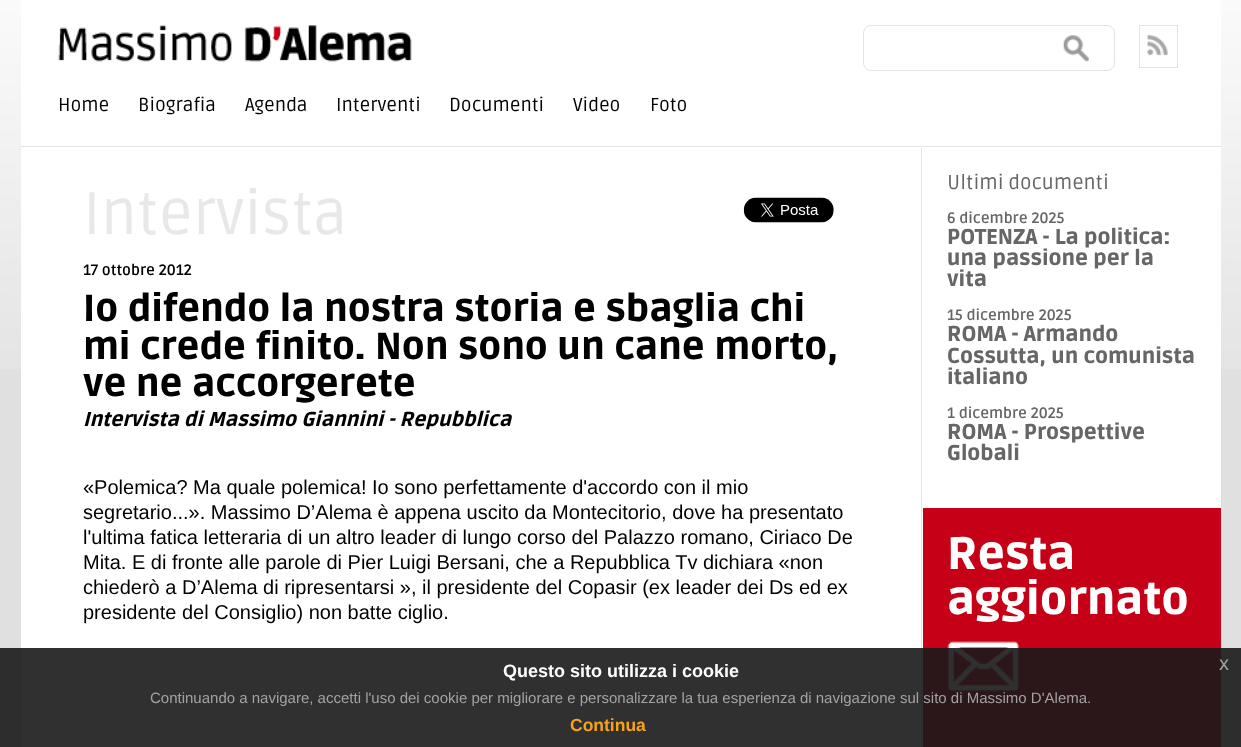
<svg xmlns="http://www.w3.org/2000/svg" width="1241" height="747">
	<rect width="100%" height="100%" fill="#E0E0E0" />
	<image x="0" y="0" width="1241" height="369" href="assets/img1.png" />
	<rect x="21" y="0" width="1200" height="747" fill="#FFFFFF" />
	<rect x="21" y="146" width="1200" height="1" fill="#E3E3E3" />
	<image x="58" y="25" width="354" height="37" href="assets/img2.png" />
	<rect x="863.5" y="25.5" width="251" height="45" rx="7.5" fill="none" stroke="#E3E3E3" />
	<image x="1063" y="35" width="26" height="27" href="assets/img3.png" />
	<rect x="1139.5" y="25.5" width="38" height="42" fill="none" stroke="#E3E3E3" />
	<image x="1147" y="34" width="21" height="22" href="assets/img4.png" />
	<g font-family="Ruda" font-size="18.75" fill="#000000">
		<text x="58" y="111">Home</text>
		<text x="138" y="111">Biografia</text>
		<text x="245" y="111">Agenda</text>
		<text x="336" y="111">Interventi</text>
		<text x="449" y="111">Documenti</text>
		<text x="573" y="111">Video</text>
		<text x="650" y="111">Foto</text>
	</g>
	<text x="83" y="234" font-family="Ruda" font-size="60" fill="#E8E8E8">Intervista</text>
	<image x="743" y="197" width="91" height="26" href="assets/img5.png" />
	<text x="83" y="275" font-family="Ruda" font-size="15" font-weight="700" fill="#000000">17 ottobre 2012</text>
	<g font-family="Ruda" font-size="37.5" font-weight="900" fill="#000000">
		<text x="83" y="321">Io difendo la nostra storia e sbaglia chi</text>
		<text x="83" y="359">mi crede finito. Non sono un cane morto,</text>
		<text x="83" y="396">ve ne accorgerete</text>
	</g>
	<text x="83" y="426" font-family="Ruda" font-size="20" font-weight="900" font-style="italic" fill="#000000">Intervista di Massimo Giannini - Repubblica</text>
	<g font-family="Liberation Sans" font-size="20" fill="#000000">
		<text x="83" y="494">«Polemica? Ma quale polemica! Io sono perfettamente d'accordo con il mio</text>
		<text x="83" y="519">segretario...». Massimo D’Alema è appena uscito da Montecitorio, dove ha presentato</text>
		<text x="83" y="544">l'ultima fatica letteraria di un altro leader di lungo corso del Palazzo romano, Ciriaco De</text>
		<text x="83" y="569">Mita. E di fronte alle parole di Pier Luigi Bersani, che a Repubblica Tv dichiara «non</text>
		<text x="83" y="594">chiederò a D’Alema di ripresentarsi », il presidente del Copasir (ex leader dei Ds ed ex</text>
		<text x="83" y="619">presidente del Consiglio) non batte ciglio.</text>
	</g>
	<rect x="921" y="148" width="1" height="599" fill="#E3E3E3" />
	<text x="947" y="189" font-family="Ruda" font-size="20" fill="#666666">Ultimi documenti</text>
	<text x="947" y="223" font-family="Ruda" font-size="15" font-weight="700" fill="#666666">6 dicembre 2025</text>
	<g font-family="Ruda" font-size="21.25" font-weight="900" fill="#666666">
		<text x="947" y="244">POTENZA - La politica:</text>
		<text x="947" y="265">una passione per la</text>
		<text x="947" y="286">vita</text>
	</g>
	<text x="947" y="320" font-family="Ruda" font-size="15" font-weight="700" fill="#666666">15 dicembre 2025</text>
	<g font-family="Ruda" font-size="21.25" font-weight="900" fill="#666666">
		<text x="947" y="341">ROMA - Armando</text>
		<text x="947" y="363">Cossutta, un comunista</text>
		<text x="947" y="384">italiano</text>
	</g>
	<text x="947" y="418" font-family="Ruda" font-size="15" font-weight="700" fill="#666666">1 dicembre 2025</text>
	<g font-family="Ruda" font-size="21.25" font-weight="900" fill="#666666">
		<text x="947" y="439">ROMA - Prospettive</text>
		<text x="947" y="460">Globali</text>
	</g>
	<rect x="923" y="508" width="298" height="239" fill="#C50017" />
	<g font-family="Ruda" font-size="45" font-weight="900" fill="#FFFFFF">
		<text x="947" y="569">Resta</text>
		<text x="947" y="614">aggiornato</text>
	</g>
	<image x="947" y="641" width="72" height="51" href="assets/img6.png" />
	<rect x="0" y="648" width="1241" height="99" fill="#191919" fill-opacity="0.9" />
	<text x="503" y="677" font-family="Liberation Sans" font-size="18" font-weight="700" fill="#FFFFFF">Questo sito utilizza i cookie</text>
	<text x="1219" y="670" font-family="Liberation Sans" font-size="20" fill="#A2A2A2">x</text>
	<text x="150" y="703" font-family="Liberation Sans" font-size="15" fill="#A2A2A2">Continuando a navigare, accetti l'uso dei cookie per migliorare e personalizzare la tua esperienza di navigazione sul sito di Massimo D'Alema.</text>
	<text x="570" y="731" font-family="Liberation Sans" font-size="17.5" font-weight="700" fill="#F6A21D">Continua</text>
</svg>
